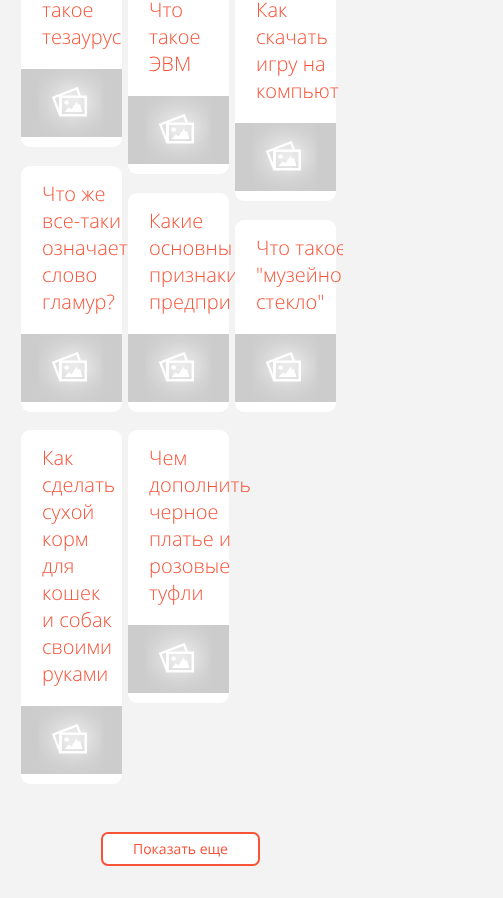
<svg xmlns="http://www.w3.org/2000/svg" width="503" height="898">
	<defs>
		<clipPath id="clip1"><rect x="18" y="0" width="325" height="784" /></clipPath>
	</defs>
	<rect width="100%" height="100%" fill="#F4F3F3" />
	<rect x="21" y="-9" width="101" height="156" rx="9" fill="#FFFFFF" />
	<g font-family="Open Sans" font-size="20" font-weight="300" fill="#F85338">
		<text x="42" y="17">такое</text>
		<text x="42" y="44">тезаурус</text>
	</g>
	<image x="21" y="69" width="101" height="68" href="assets/img1.png" />
	<rect x="128" y="-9" width="101" height="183" rx="9" fill="#FFFFFF" />
	<g font-family="Open Sans" font-size="20" font-weight="300" fill="#F85338">
		<text x="149" y="17">Что</text>
		<text x="149" y="44">такое</text>
		<text x="149" y="71">ЭВМ</text>
	</g>
	<image x="128" y="96" width="101" height="68" href="assets/img1.png" />
	<rect x="235" y="-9" width="101" height="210" rx="9" fill="#FFFFFF" />
	<g font-family="Open Sans" font-size="20" font-weight="300" fill="#F85338">
		<text x="256" y="17">Как</text>
		<text x="256" y="44">скачать</text>
		<text x="256" y="71">игру на</text>
		<text x="256" y="98">компьют</text>
	</g>
	<image x="235" y="123" width="101" height="68" href="assets/img1.png" />
	<rect x="21" y="166" width="101" height="246" rx="9" fill="#FFFFFF" />
	<g font-family="Open Sans" font-size="20" font-weight="300" fill="#F85338">
		<text x="42" y="201">Что же</text>
		<text x="42" y="228">все-таки</text>
		<text x="42" y="255">означает</text>
		<text x="42" y="282">слово</text>
		<text x="42" y="309">гламур?</text>
	</g>
	<image x="21" y="334" width="101" height="68" href="assets/img1.png" />
	<rect x="128" y="193" width="101" height="219" rx="9" fill="#FFFFFF" />
	<g font-family="Open Sans" font-size="20" font-weight="300" fill="#F85338">
		<text x="149" y="228">Какие</text>
		<text x="149" y="255">основны</text>
		<text x="149" y="282">признаки</text>
		<text x="149" y="309">предпри</text>
	</g>
	<image x="128" y="334" width="101" height="68" href="assets/img1.png" />
	<rect x="235" y="220" width="101" height="192" rx="9" fill="#FFFFFF" />
	<g clip-path="url(#clip1)">
		<text x="256" y="255" font-family="Open Sans" font-size="20" font-weight="300" fill="#F85338">Что такое</text>
	</g>
	<g font-family="Open Sans" font-size="20" font-weight="300" fill="#F85338">
		<text x="256" y="282">"музейно</text>
		<text x="256" y="309">стекло"</text>
	</g>
	<image x="235" y="334" width="101" height="68" href="assets/img1.png" />
	<rect x="21" y="430" width="101" height="354" rx="9" fill="#FFFFFF" />
	<g font-family="Open Sans" font-size="20" font-weight="300" fill="#F85338">
		<text x="42" y="465">Как</text>
		<text x="42" y="492">сделать</text>
		<text x="42" y="519">сухой</text>
		<text x="42" y="546">корм</text>
		<text x="42" y="573">для</text>
		<text x="42" y="600">кошек</text>
		<text x="42" y="627">и собак</text>
		<text x="42" y="654">своими</text>
		<text x="42" y="681">руками</text>
	</g>
	<image x="21" y="706" width="101" height="68" href="assets/img1.png" />
	<rect x="128" y="430" width="101" height="273" rx="9" fill="#FFFFFF" />
	<g font-family="Open Sans" font-size="20" font-weight="300" fill="#F85338">
		<text x="149" y="465">Чем</text>
		<text x="149" y="492">дополнить</text>
		<text x="149" y="519">черное</text>
		<text x="149" y="546">платье и</text>
		<text x="149" y="573">розовые</text>
		<text x="149" y="600">туфли</text>
	</g>
	<image x="128" y="625" width="101" height="68" href="assets/img1.png" />
	<rect x="102" y="833" width="157" height="32" rx="6" fill="#FFFFFF" stroke="#F85338" stroke-width="2" />
	<text x="133" y="854" font-family="Open Sans" font-size="14" fill="#F85338">Показать еще</text>
</svg>
